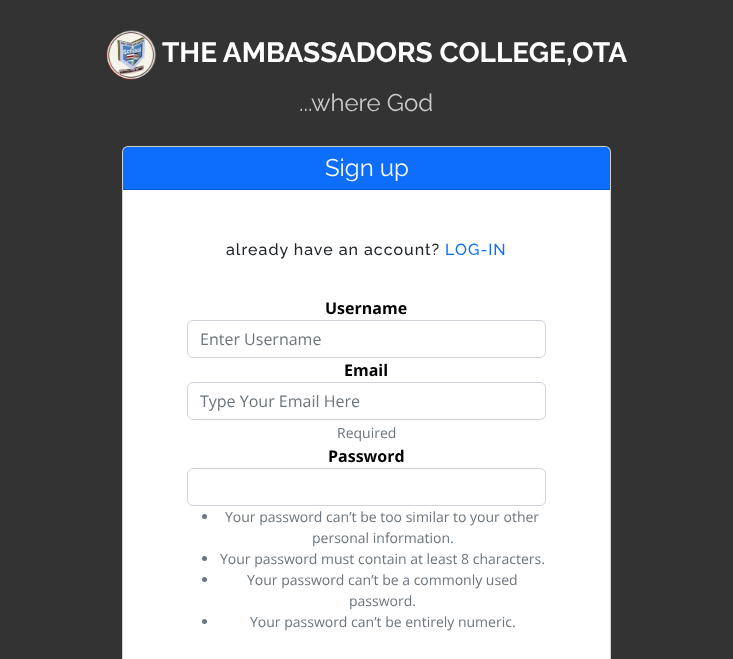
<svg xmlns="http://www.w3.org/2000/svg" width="733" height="659">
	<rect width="100%" height="100%" fill="#333333" />
	<image x="106" y="30" width="50" height="50" href="assets/img1.png" />
	<text x="162" y="62" font-family="Raleway" font-size="28" font-weight="700" fill="#FFFFFF">THE AMBASSADORS COLLEGE,OTA</text>
	<text x="299" y="111" font-family="Raleway" font-size="24" fill="#CCCCCC">...where God</text>
	<rect x="122" y="146" width="489" height="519" rx="6" fill="#FFFFFF" />
	<rect x="122.5" y="146.5" width="488" height="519" rx="5.5" fill="none" stroke="#000000" stroke-opacity="0.18" />
	<path d="M128 147H605C608 147 610 149 610 152V190H123V152C123 149 125 147 128 147Z" fill="#0D6EFD" />
	<rect x="123" y="189" width="487" height="1" fill="#0B5BD0" />
	<text x="325" y="176" font-family="Raleway" font-size="24" fill="#F8F9FA">Sign up</text>
	<text x="226" y="255" font-family="Raleway" font-size="16" font-weight="500" letter-spacing="1" fill="#212529">already have an account?</text>
	<text x="445" y="255" font-family="Raleway" font-size="16" font-weight="500" letter-spacing="1" fill="#0D6EFD">LOG-IN</text>
	<text x="325" y="314" font-family="Open Sans" font-size="16" font-weight="700" fill="#000000">Username</text>
	<rect x="187.5" y="320.5" width="358" height="37" rx="5.5" fill="none" stroke="#CED4DA" />
	<text x="200" y="345" font-family="Open Sans" font-size="16" fill="#6C757D">Enter Username</text>
	<text x="344" y="376" font-family="Open Sans" font-size="16" font-weight="700" fill="#000000">Email</text>
	<rect x="187.5" y="382.5" width="358" height="37" rx="5.5" fill="none" stroke="#CED4DA" />
	<text x="200" y="407" font-family="Open Sans" font-size="16" fill="#6C757D">Type Your Email Here</text>
	<text x="337" y="438" font-family="Open Sans" font-size="14" fill="#6C757D">Required</text>
	<text x="328" y="462" font-family="Open Sans" font-size="16" font-weight="700" fill="#000000">Password</text>
	<rect x="187.5" y="468.5" width="358" height="37" rx="5.5" fill="none" stroke="#CED4DA" />
	<circle cx="204.5" cy="516.5" r="2.5" fill="#6C757D" />
	<g font-family="Open Sans" font-size="14" fill="#6C757D">
		<text x="225" y="522">Your password can’t be too similar to your other</text>
		<text x="312" y="543">personal information.</text>
	</g>
	<circle cx="204.5" cy="558.5" r="2.5" fill="#6C757D" />
	<text x="220" y="564" font-family="Open Sans" font-size="14" fill="#6C757D">Your password must contain at least 8 characters.</text>
	<circle cx="204.5" cy="579.5" r="2.5" fill="#6C757D" />
	<g font-family="Open Sans" font-size="14" fill="#6C757D">
		<text x="247" y="585">Your password can’t be a commonly used</text>
		<text x="349" y="606">password.</text>
	</g>
	<circle cx="204.5" cy="621.5" r="2.5" fill="#6C757D" />
	<text x="250" y="627" font-family="Open Sans" font-size="14" fill="#6C757D">Your password can’t be entirely numeric.</text>
</svg>
